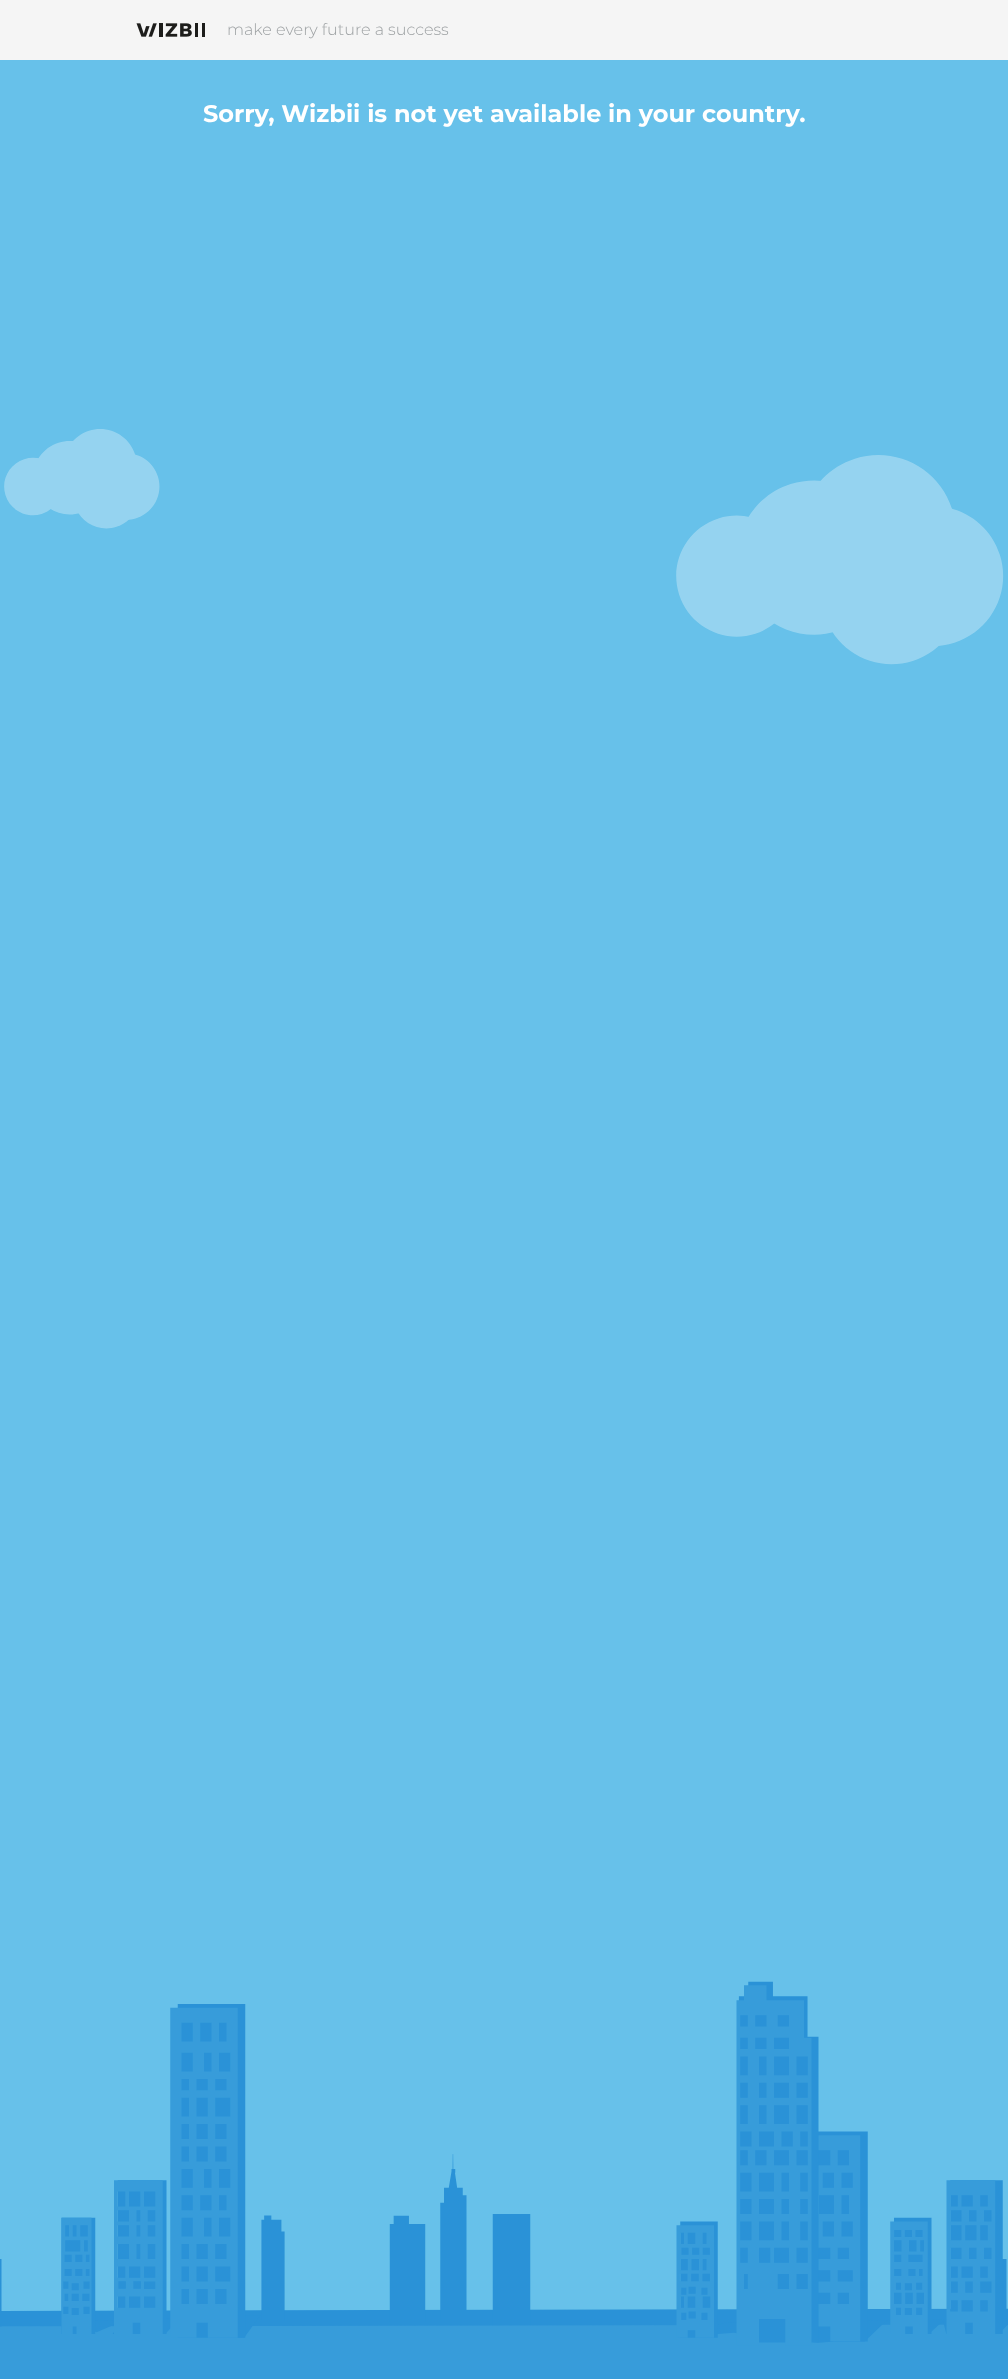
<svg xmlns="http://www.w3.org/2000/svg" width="1008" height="2379">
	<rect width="100%" height="100%" fill="#67C1EA" />
	<image x="0" y="429" width="1008" height="1950" href="assets/img1.png" />
	<rect x="0" y="0" width="1008" height="60" fill="#F5F5F5" />
	<image x="136" y="23" width="69" height="14" href="assets/img2.png" />
	<text x="227" y="35" font-family="Montserrat" font-size="16" font-weight="300" fill="#9DA1A3">make every future a success</text>
	<text x="203" y="122" font-family="Montserrat" font-size="24" font-weight="700" fill="#FFFFFF">Sorry, Wizbii is not yet available in your country.</text>
</svg>
